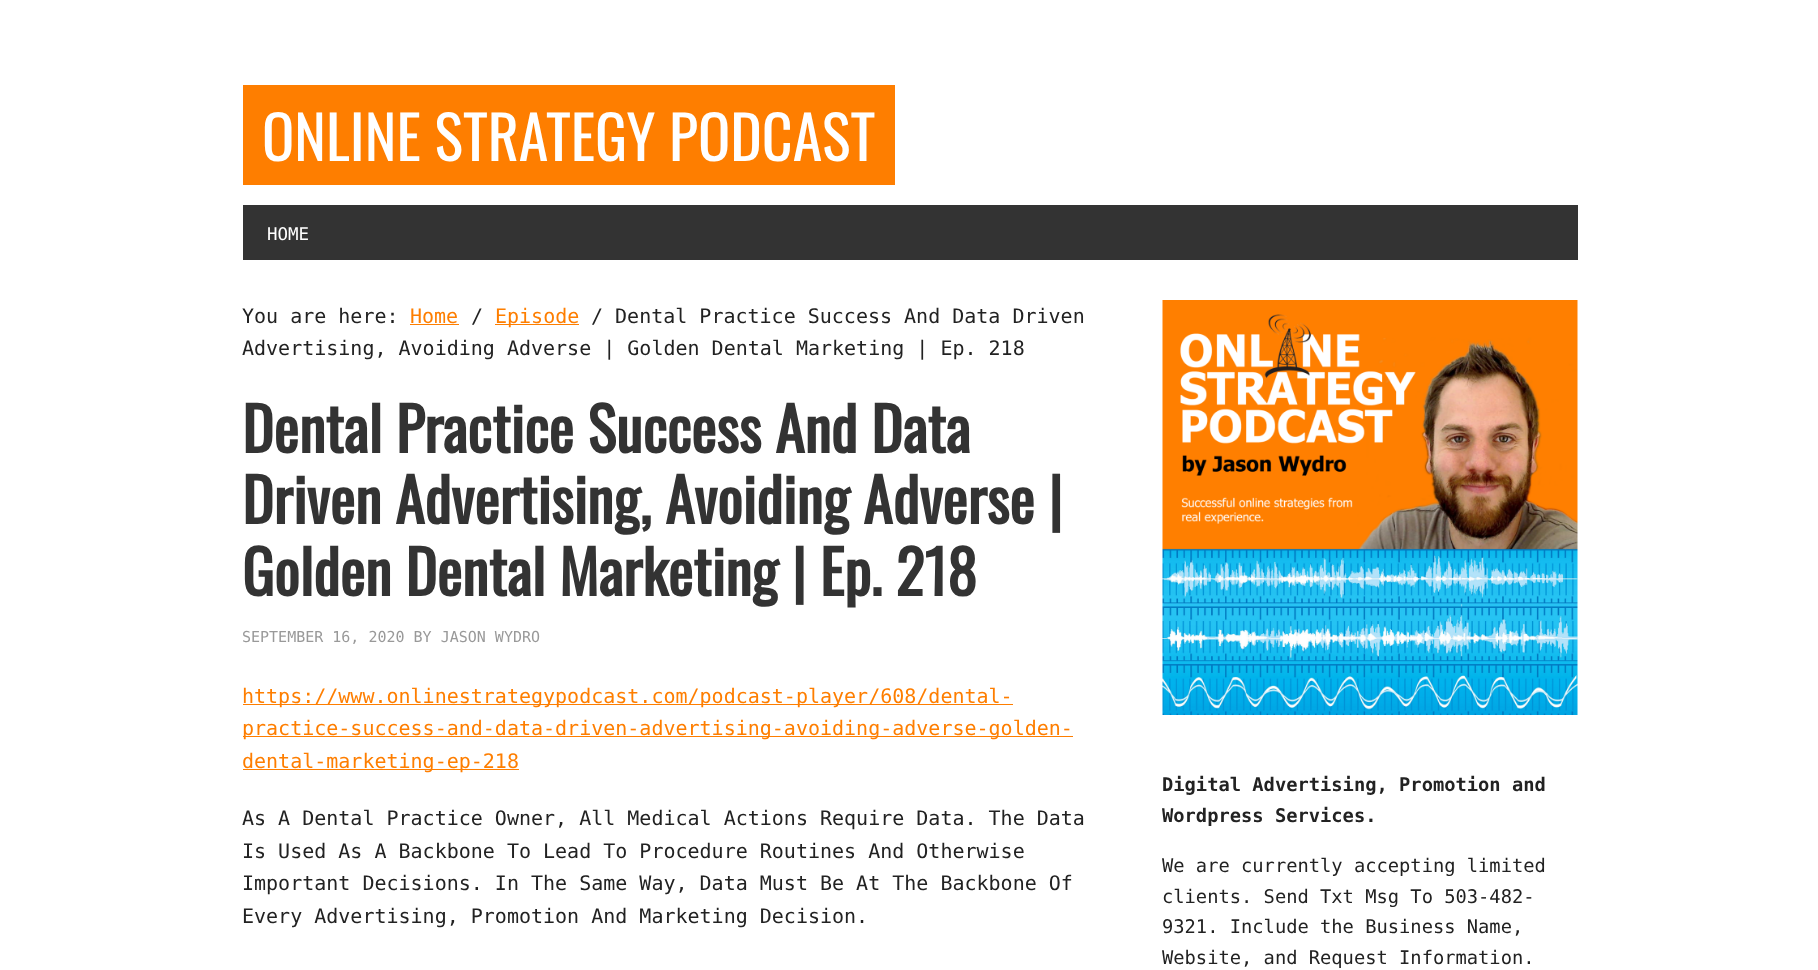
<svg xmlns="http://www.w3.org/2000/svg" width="1818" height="970">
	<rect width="100%" height="100%" fill="#FFFFFF" />
	<rect x="243" y="85" width="652" height="100" fill="#FE7E00" />
	<text x="262" y="161" font-family="Oswald" font-size="60" fill="#FFFFFF">ONLINE STRATEGY PODCAST</text>
	<rect x="243" y="205" width="1335" height="55" fill="#333333" />
	<text x="267" y="240" font-family="DejaVu Sans Mono" font-size="17.5" fill="#FFFFFF">HOME</text>
	<text x="242" y="323" font-family="DejaVu Sans Mono" font-size="20" fill="#222222">You are here:</text>
	<text x="410" y="323" font-family="DejaVu Sans Mono" font-size="20" fill="#FE7E00">Home</text>
	<rect x="410" y="324" width="49" height="1" fill="#FE7E00" />
	<text x="471" y="323" font-family="DejaVu Sans Mono" font-size="20" fill="#222222">/</text>
	<rect x="495" y="324" width="84" height="1" fill="#FE7E00" />
	<text x="495" y="323" font-family="DejaVu Sans Mono" font-size="20" fill="#FE7E00">Episode</text>
	<g font-family="DejaVu Sans Mono" font-size="20" fill="#222222">
		<text x="591" y="323">/ Dental Practice Success And Data Driven</text>
		<text x="242" y="355">Advertising, Avoiding Adverse | Golden Dental Marketing | Ep. 218</text>
	</g>
	<g font-family="Oswald" font-size="60" font-weight="700" fill="#333333">
		<text x="242" y="453">Dental Practice Success And Data</text>
		<text x="242" y="524">Driven Advertising, Avoiding Adverse |</text>
		<text x="242" y="596">Golden Dental Marketing | Ep. 218</text>
	</g>
	<text x="242" y="642" font-family="DejaVu Sans Mono" font-size="15" fill="#999999">SEPTEMBER 16, 2020 BY JASON WYDRO</text>
	<rect x="243" y="704" width="770" height="1" fill="#FE7E00" />
	<text x="242" y="703" font-family="DejaVu Sans Mono" font-size="20" fill="#FE7E00">https://www.onlinestrategypodcast.com/podcast-player/608/dental-</text>
	<rect x="243" y="736" width="830" height="1" fill="#FE7E00" />
	<text x="242" y="735" font-family="DejaVu Sans Mono" font-size="20" fill="#FE7E00">practice-success-and-data-driven-advertising-avoiding-adverse-golden-</text>
	<rect x="243" y="769" width="276" height="1" fill="#FE7E00" />
	<text x="242" y="768" font-family="DejaVu Sans Mono" font-size="20" fill="#FE7E00">dental-marketing-ep-218</text>
	<g font-family="DejaVu Sans Mono" font-size="20" fill="#222222">
		<text x="242" y="825">As A Dental Practice Owner, All Medical Actions Require Data. The Data</text>
		<text x="242" y="858">Is Used As A Backbone To Lead To Procedure Routines And Otherwise</text>
		<text x="242" y="890">Important Decisions. In The Same Way, Data Must Be At The Backbone Of</text>
		<text x="242" y="923">Every Advertising, Promotion And Marketing Decision.</text>
	</g>
	<image x="1162" y="300" width="416" height="415" href="assets/img1.png" />
	<g font-family="DejaVu Sans Mono" font-size="18.75" font-weight="700" fill="#222222">
		<text x="1162" y="791">Digital Advertising, Promotion and</text>
		<text x="1162" y="822">Wordpress Services.</text>
	</g>
	<g font-family="DejaVu Sans Mono" font-size="18.75" fill="#222222">
		<text x="1162" y="872">We are currently accepting limited</text>
		<text x="1162" y="903">clients. Send Txt Msg To 503-482-</text>
		<text x="1162" y="933">9321. Include the Business Name,</text>
		<text x="1162" y="964">Website, and Request Information.</text>
	</g>
</svg>
